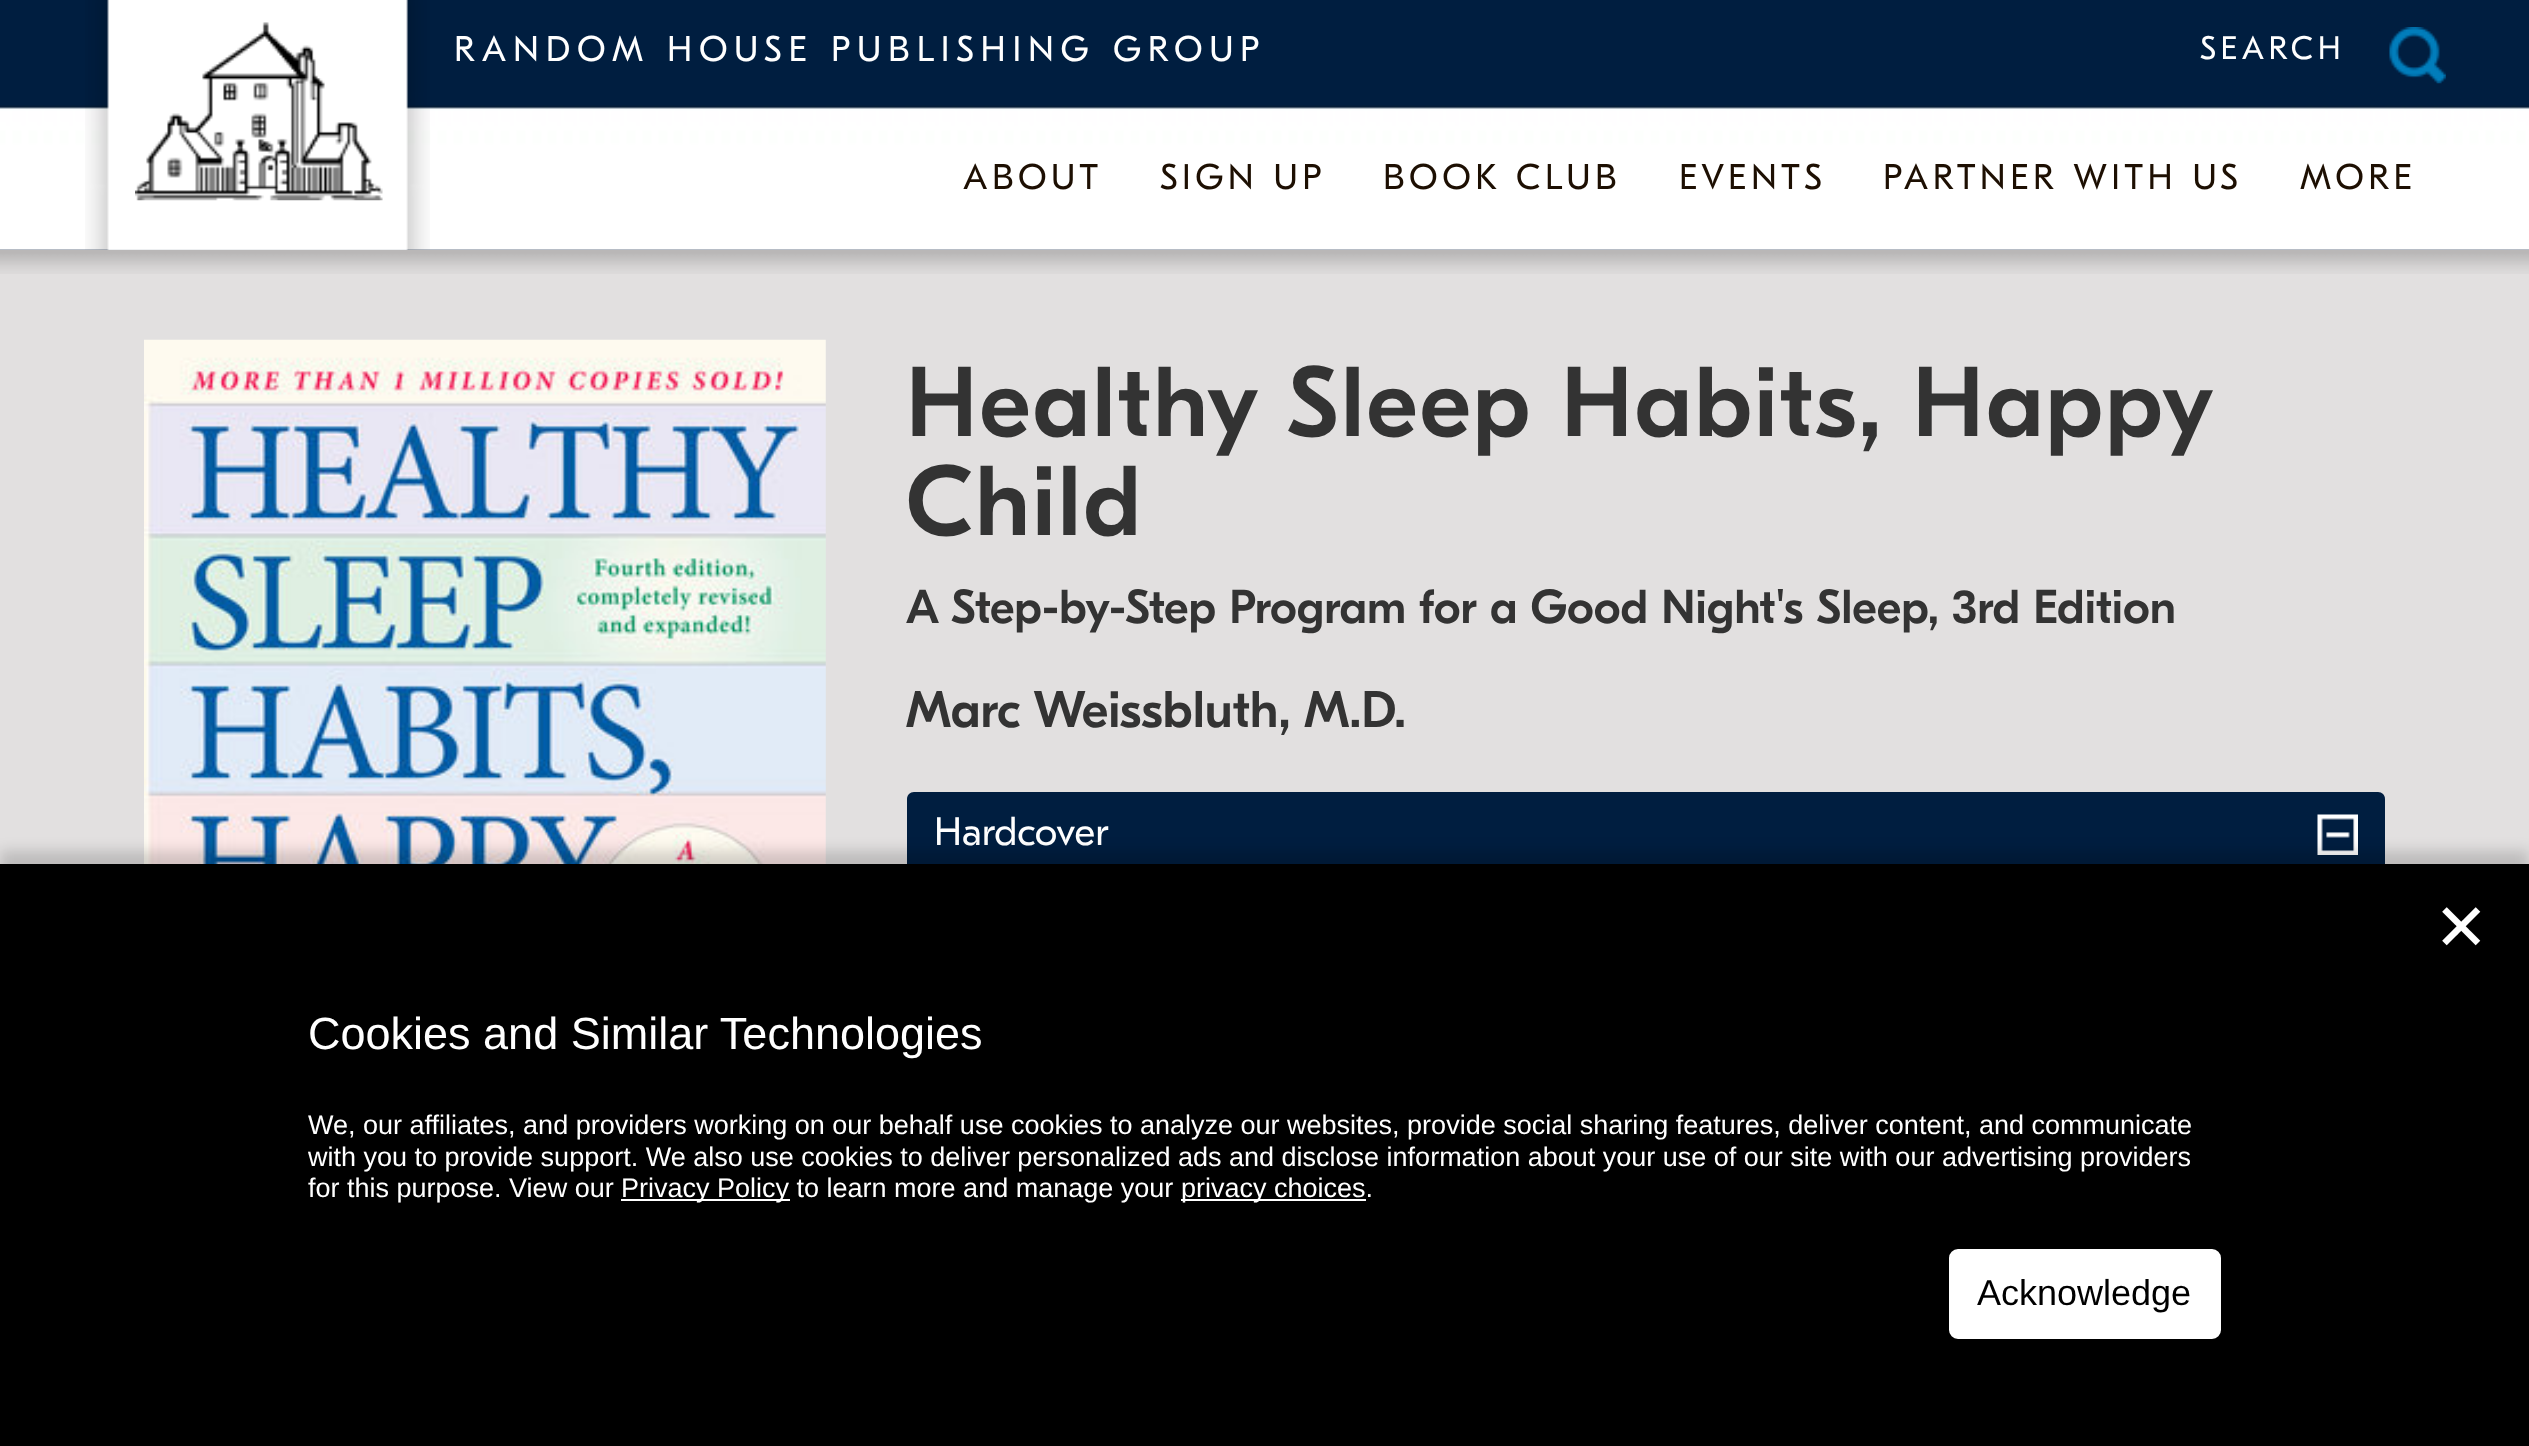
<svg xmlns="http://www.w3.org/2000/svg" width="2529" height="1446">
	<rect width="100%" height="100%" fill="#001E40" />
	<image x="0" y="105" width="2529" height="145" href="assets/img1.png" />
	<rect x="0" y="250" width="2529" height="614" fill="#E2E0E0" />
	<image x="0" y="249" width="2529" height="25" href="assets/img5.png" />
	<image x="85" y="0" width="345" height="250" href="assets/img2.png" />
	<image x="135" y="22" width="248" height="179" href="assets/img3.png" />
	<text x="454" y="61" font-family="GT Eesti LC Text" font-size="35.6" letter-spacing="6.75" fill="#FFFFFF">RANDOM HOUSE PUBLISHING GROUP</text>
	<image x="2389" y="27" width="57" height="57" href="assets/img4.png" />
	<text x="2200" y="59" font-family="GT Eesti LC Text" font-size="32.5" letter-spacing="4.5" fill="#FFFFFF">SEARCH</text>
	<g font-family="GT Eesti LC Text" font-size="35.6" letter-spacing="4.5" fill="#1D0F02">
		<text x="963" y="189">ABOUT</text>
		<text x="1160" y="189">SIGN UP</text>
		<text x="1383" y="189">BOOK CLUB</text>
		<text x="1679" y="189">EVENTS</text>
		<text x="1883" y="189">PARTNER WITH US</text>
		<text x="2300" y="189">MORE</text>
	</g>
	<image x="144" y="339" width="682" height="525" href="assets/img6.png" />
	<g font-family="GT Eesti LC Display" font-size="99" font-weight="500" letter-spacing="2.25" fill="#333333">
		<text x="906" y="436" word-spacing="-1">Healthy Sleep Habits, Happy</text>
		<text x="906" y="535">Child</text>
	</g>
	<text x="906" y="623" font-family="GT Eesti LC Display" font-size="47.5" font-weight="500" fill="#333333">A Step-by-Step Program for a Good Night's Sleep, 3rd Edition</text>
	<text x="906" y="727" font-family="GT Eesti LC Display" font-size="51.5" font-weight="500" fill="#333333">Marc Weissbluth, M.D.</text>
	<path d="M914 792H2378C2382 792 2385 795 2385 799V878H907V799C907 795 910 792 914 792Z" fill="#001E40" />
	<image x="2317" y="814" width="41" height="41" href="assets/img7.png" />
	<text x="934" y="845" font-family="GT Eesti LC Text" font-size="39.5" fill="#FFFFFF">Hardcover</text>
	<rect x="0" y="851" width="2529" height="582" fill="#000000" fill-opacity="0.16" filter="blur(7px)" />
	<rect x="0" y="864" width="2529" height="582" fill="#000000" />
	<text x="2434" y="950" font-family="DejaVu Sans" font-size="65" fill="#FFFFFF">✕</text>
	<text x="308" y="1049" font-family="Liberation Sans" font-size="45" fill="#FFFFFF">Cookies and Similar Technologies</text>
	<g font-family="Liberation Sans" font-size="27" fill="#FFFFFF">
		<text x="308" y="1134">We, our affiliates, and providers working on our behalf use cookies to analyze our websites, provide social sharing features, deliver content, and communicate</text>
		<text x="308" y="1166">with you to provide support. We also use cookies to deliver personalized ads and disclose information about your use of our site with our advertising providers</text>
		<text x="308" y="1197">for this purpose. View our</text>
	</g>
	<rect x="621" y="1199" width="169" height="2" fill="#FFFFFF" />
	<text x="621" y="1197" font-family="Liberation Sans" font-size="27" fill="#FFFFFF">Privacy Policy to learn more and manage your</text>
	<rect x="1181" y="1199" width="185" height="2" fill="#FFFFFF" />
	<text x="1181" y="1197" font-family="Liberation Sans" font-size="27" fill="#FFFFFF">privacy choices.</text>
	<rect x="1951.5" y="1251.5" width="267" height="85" rx="6.5" fill="#FFFFFF" stroke="#FFFFFF" stroke-width="5" />
	<text x="1977" y="1305" font-family="Liberation Sans" font-size="36" fill="#000000">Acknowledge</text>
</svg>
